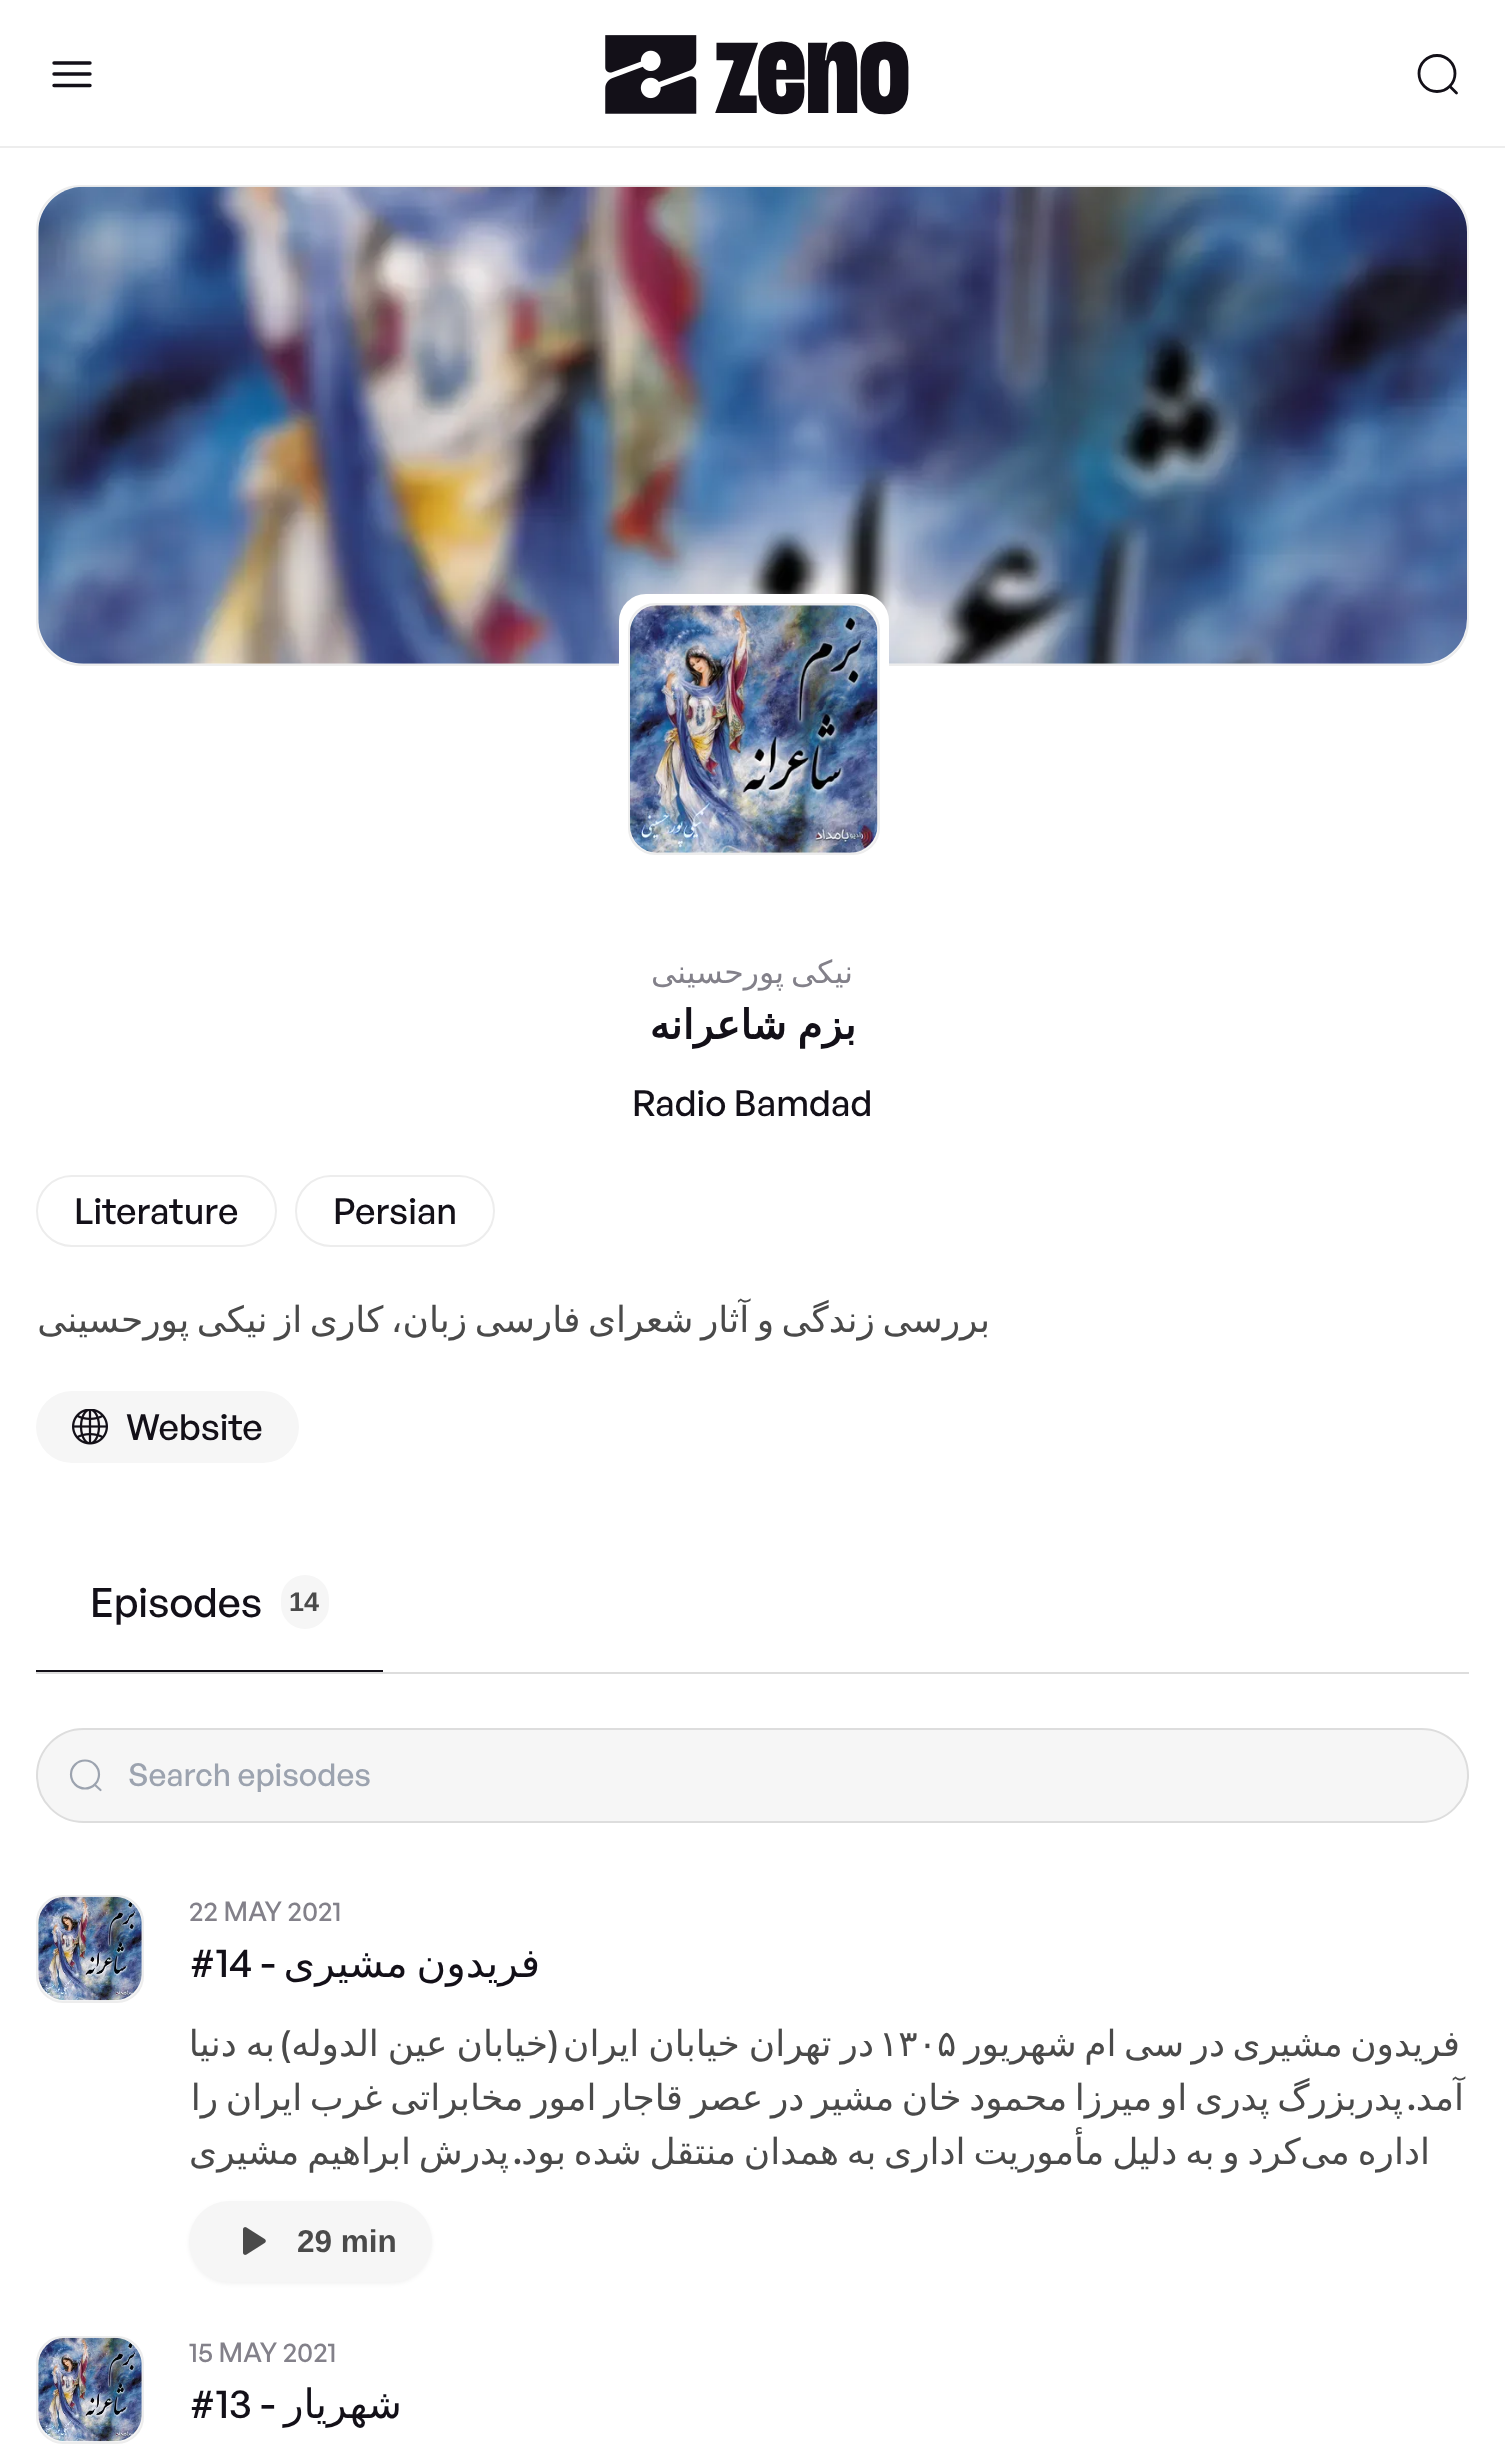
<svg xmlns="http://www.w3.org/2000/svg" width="1505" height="2464">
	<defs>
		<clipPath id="clip1"><rect x="189" y="2016" width="1280" height="162" /></clipPath>
	</defs>
	<rect width="100%" height="100%" fill="#FFFFFF" />
	<rect x="0" y="146" width="1505" height="2" fill="#EDEDED" />
	<circle cx="1437" cy="73.5" r="18" fill="none" stroke="#131018" stroke-width="2.8" />
	<path d="M1450 86.5L1456.5 93" fill="none" stroke="#131018" stroke-width="2.8" stroke-linecap="round" />
	<text x="715" y="113" font-family="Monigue" font-size="135" fill="#131018">zeno</text>
	<image x="605" y="35" width="92" height="79" href="assets/img1.png" />
	<path d="M90 63H54M90 74H54M90 85.5H54" fill="none" stroke="#131018" stroke-width="3.4" stroke-linecap="round" />
	<rect x="37" y="186" width="1431" height="479" rx="44" fill="#F6F6F6" stroke="#EDEDED" stroke-width="2" />
	<image x="38" y="186" width="1429" height="478" href="assets/img2.png" />
	<rect x="619" y="594" width="270" height="270" rx="27" fill="#FFFFFF" />
	<rect x="629" y="604" width="250" height="250" rx="26" fill="#F6F6F6" stroke="#EDEDED" stroke-width="2" />
	<image x="630" y="605" width="248" height="248" href="assets/img3.png" />
	<text x="853" y="983" word-spacing="-3" font-family="DejaVu Sans" font-size="31.5" direction="rtl" fill="#83818A">نیکی پورحسینی</text>
	<text x="856" y="1039" word-spacing="-2" font-family="DejaVu Sans" font-size="40.5" font-weight="700" direction="rtl" fill="#131018">بزم شاعرانه</text>
	<text x="632" y="1116" font-family="General Sans" font-size="36" font-weight="500" fill="#131018">Radio Bamdad</text>
	<rect x="296" y="1176" width="198" height="70" rx="35" fill="none" stroke="#EDEDED" stroke-width="2" />
	<text x="333" y="1224" font-family="General Sans" font-size="36" font-weight="500" fill="#131018">Persian</text>
	<rect x="37" y="1176" width="239" height="70" rx="35" fill="none" stroke="#EDEDED" stroke-width="2" />
	<text x="74" y="1224" font-family="General Sans" font-size="36" font-weight="500" fill="#131018">Literature</text>
	<g font-family="DejaVu Sans" font-size="36" direction="rtl" fill="#4A4A4A">
		<text x="990" y="1332">بررسی</text>
		<text x="875" y="1332" word-spacing="-4">زندگی و آثار شعرای فارسی زبان، کاری از نیکی پورحسینی</text>
	</g>
	<rect x="36" y="1391" width="263" height="72" rx="36" fill="#F6F6F6" />
	<text x="126" y="1440" font-family="General Sans" font-size="36" font-weight="500" fill="#131018">Website</text>
	<image x="72" y="1409" width="36" height="36" href="assets/img4.png" />
	<rect x="36" y="1672" width="1433" height="2" fill="#DDDDDD" />
	<rect x="36" y="1670" width="347" height="2" fill="#131018" />
	<rect x="281" y="1575" width="48" height="54" rx="24" fill="#F6F6F6" />
	<text x="289" y="1611" font-family="Liberation Sans" font-size="27" font-weight="700" fill="#4A4A4A">14</text>
	<text x="90" y="1617" font-family="General Sans" font-size="40.5" font-weight="500" fill="#131018">Episodes</text>
	<rect x="37" y="1729" width="1431" height="93" rx="46.5" fill="#F6F6F6" stroke="#DDDDDD" stroke-width="2" />
	<text x="128" y="1786" font-family="General Sans" font-size="31.5" font-weight="500" fill="#9CA3AF">Search episodes</text>
	<circle cx="85" cy="1774.5" r="14" fill="none" stroke="#9CA3AF" stroke-width="2.2" />
	<path d="M95 1785L100.5 1790" fill="none" stroke="#9CA3AF" stroke-width="2.2" stroke-linecap="round" />
	<text x="189" y="1921" font-family="General Sans" font-size="27" font-weight="500" fill="#83818A">22 MAY 2021</text>
	<text x="540" y="1977" word-spacing="-4" font-family="DejaVu Sans" font-size="40.5" direction="rtl" fill="#131018">فریدون مشیری</text>
	<text x="189" y="1977" font-family="General Sans" font-size="40.5" font-weight="500" fill="#131018">#14 -</text>
	<g clip-path="url(#clip1)">
		<text x="1460" y="2056" word-spacing="-4" font-family="DejaVu Sans" font-size="36" direction="rtl" fill="#4A4A4A">فریدون مشیری در سی ام شهریور</text>
	</g>
	<text x="879" y="2056" font-family="DejaVu Sans" font-size="36" fill="#4A4A4A">۱۳۰۵</text>
	<g font-family="DejaVu Sans" font-size="36" direction="rtl" fill="#4A4A4A">
		<text x="874" y="2056" word-spacing="-2.5">در تهران خیابان ایران</text>
		<text x="548" y="2056" word-spacing="-2.5">خیابان عین الدوله</text>
	</g>
	<g font-family="General Sans" font-size="36" font-weight="500" direction="rtl" fill="#4A4A4A">
		<text x="559" y="2056">(</text>
		<text x="291" y="2056">)</text>
	</g>
	<g font-family="DejaVu Sans" font-size="36" direction="rtl" fill="#4A4A4A">
		<text x="275" y="2056" word-spacing="-2.5">به دنیا</text>
		<text x="1403" y="2110" word-spacing="-3.75">پدربزرگ پدری او میرزا محمود خان مشیر در عصر قاجار امور مخابراتی غرب ایران را</text>
		<text x="1464" y="2110">آمد</text>
	</g>
	<text x="1416" y="2110" font-family="General Sans" font-size="36" font-weight="500" direction="rtl" fill="#4A4A4A">.</text>
	<g font-family="DejaVu Sans" font-size="36" direction="rtl" fill="#4A4A4A">
		<text x="1430" y="2164" word-spacing="-3.6">اداره می‌کرد و به دلیل مأموریت اداری به همدان منتقل شده بود</text>
		<text x="509" y="2164" word-spacing="-3.6">پدرش ابراهیم مشیری</text>
	</g>
	<text x="522" y="2164" font-family="General Sans" font-size="36" font-weight="500" direction="rtl" fill="#4A4A4A">.</text>
	<rect x="189" y="2203" width="243" height="81" rx="40.5" fill="#000000" fill-opacity="0.05" filter="blur(2px)" />
	<rect x="189" y="2201" width="243" height="81" rx="40.5" fill="#F6F6F6" />
	<text x="297" y="2252" font-family="Liberation Sans" font-size="31.5" font-weight="700" fill="#4A4A4A">29 min</text>
	<image x="243" y="2227" width="23" height="28" href="assets/img5.png" />
	<rect x="37" y="1896" width="106" height="106" rx="26" fill="#F6F6F6" stroke="#EDEDED" stroke-width="2" />
	<image x="38" y="1896" width="104" height="105" href="assets/img6.png" />
	<text x="189" y="2362" font-family="General Sans" font-size="27" font-weight="500" fill="#83818A">15 MAY 2021</text>
	<text x="402" y="2418" font-family="DejaVu Sans" font-size="40.5" direction="rtl" fill="#131018">شهریار</text>
	<text x="189" y="2418" font-family="General Sans" font-size="40.5" font-weight="500" fill="#131018">#13 -</text>
	<rect x="37" y="2337" width="106" height="106" rx="26" fill="#F6F6F6" stroke="#EDEDED" stroke-width="2" />
	<image x="38" y="2337" width="104" height="105" href="assets/img6.png" />
</svg>
